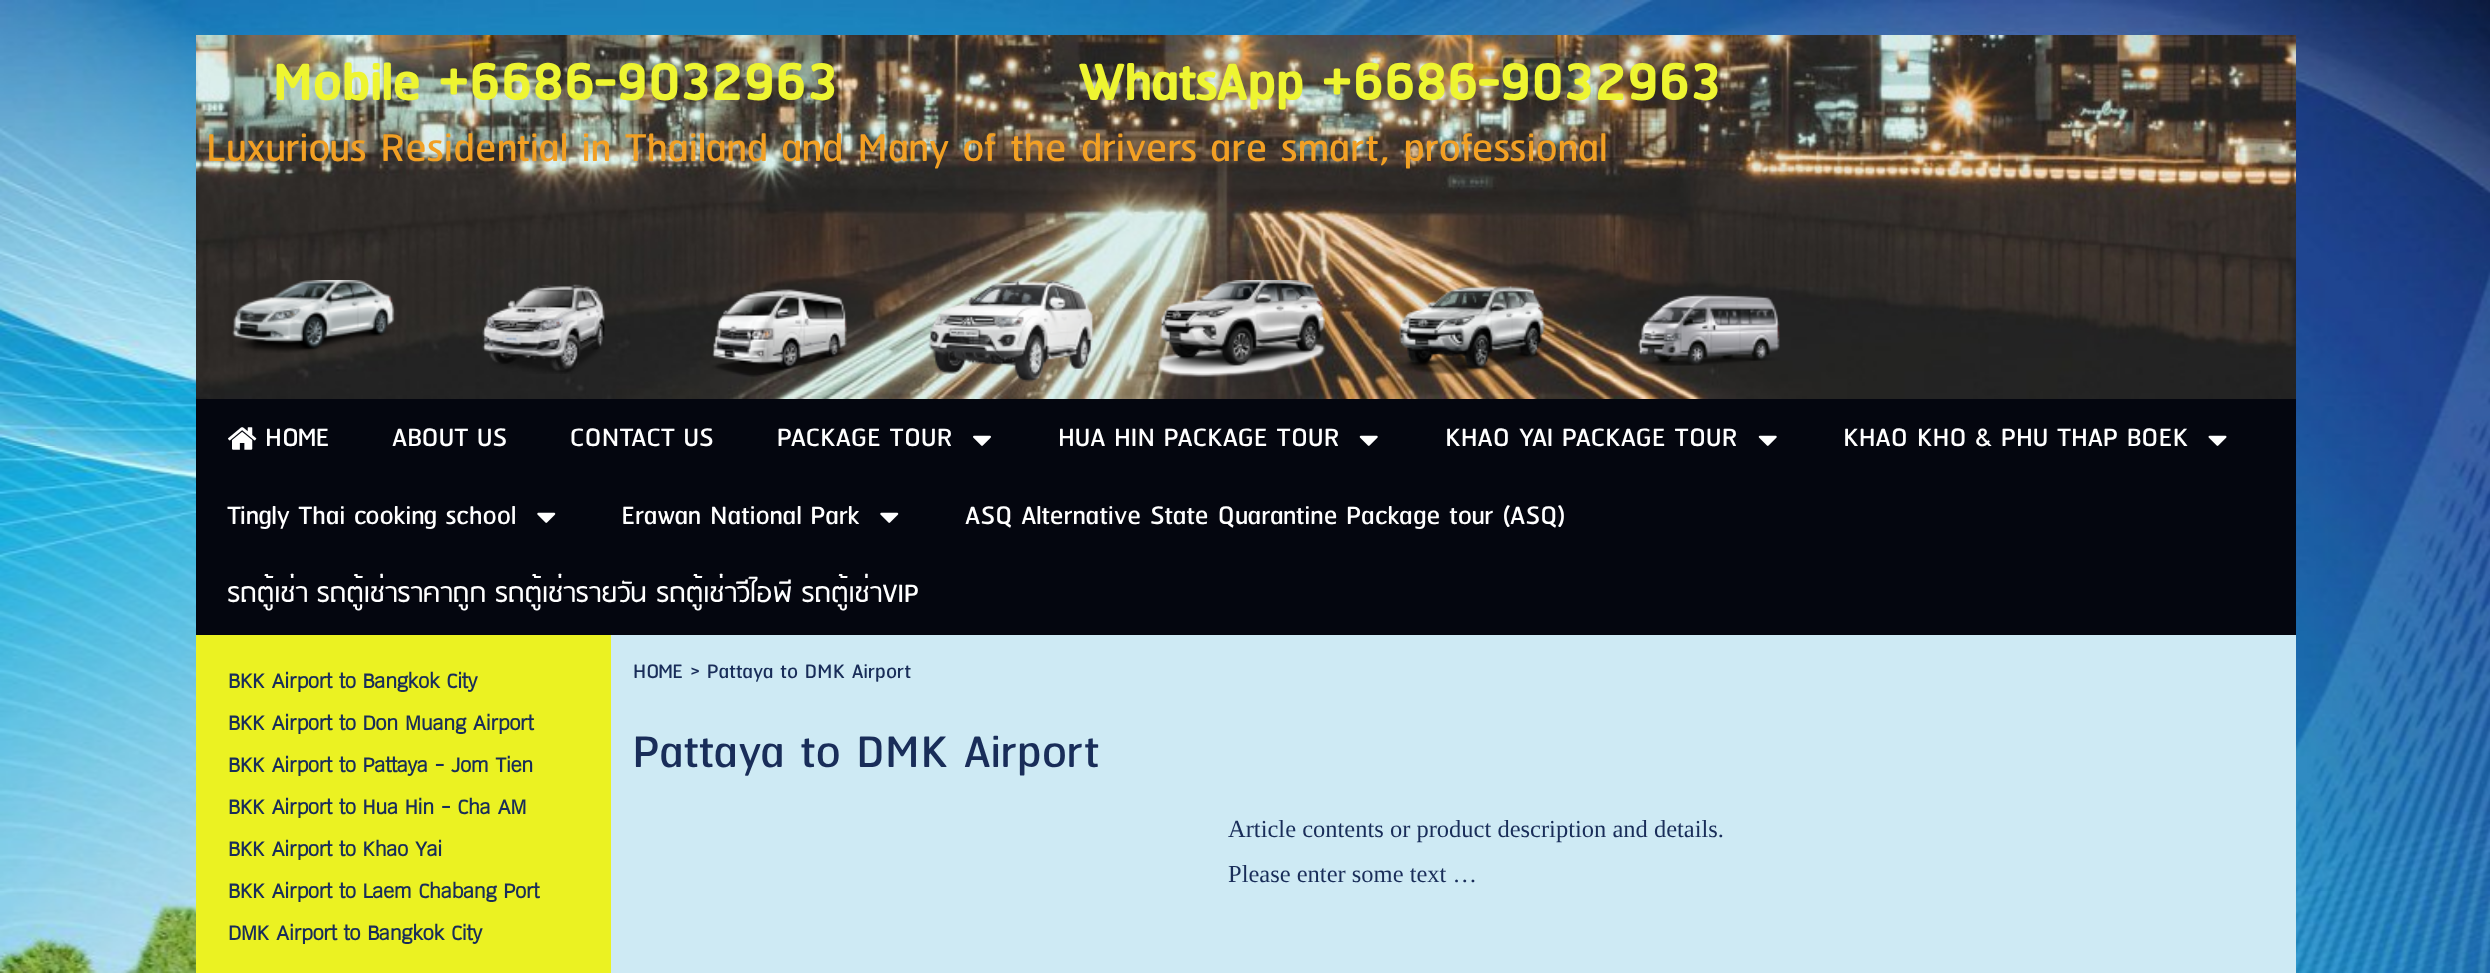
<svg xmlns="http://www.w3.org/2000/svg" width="2490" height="973">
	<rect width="100%" height="100%" fill="#FFFFFF" />
	<image x="0" y="0" width="2490" height="973" href="assets/img1.png" />
	<image x="196" y="35" width="2100" height="364" href="assets/img2.png" />
	<text x="272" y="100" font-family="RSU" font-size="63" font-weight="700" fill="#EEF531">Mobile +6686-9032963</text>
	<text x="1078" y="100" font-family="RSU" font-size="63" font-weight="700" fill="#EEF531">WhatsApp +6686-9032963</text>
	<text x="206" y="161" font-family="RSU" font-size="49" fill="#F2A024">Luxurious Residential in Thailand and Many of the drivers are smart, professional</text>
	<image x="232" y="280" width="163" height="73" href="assets/img3.png" />
	<image x="482" y="284" width="123" height="90" href="assets/img4.png" />
	<image x="712" y="289" width="135" height="88" href="assets/img5.png" />
	<image x="928" y="280" width="166" height="102" href="assets/img6.png" />
	<image x="1158" y="280" width="168" height="97" href="assets/img7.png" />
	<image x="1399" y="285" width="154" height="90" href="assets/img8.png" />
	<image x="1638" y="294" width="142" height="72" href="assets/img9.png" />
	<rect x="196" y="399" width="2100" height="236" fill="#04060F" />
	<image x="228" y="427" width="29" height="23" href="assets/img10.png" />
	<g font-family="RSU" font-size="31.5" fill="#FFFFFF">
		<text x="265" y="446">HOME</text>
		<text x="392" y="446">ABOUT US</text>
		<text x="570" y="446">CONTACT US</text>
		<text x="777" y="446">PACKAGE TOUR</text>
	</g>
	<image x="973" y="435" width="18" height="11" href="assets/img11.png" />
	<text x="1058" y="446" font-family="RSU" font-size="31.5" fill="#FFFFFF">HUA HIN PACKAGE TOUR</text>
	<image x="1359" y="435" width="19" height="11" href="assets/img12.png" />
	<text x="1445" y="446" font-family="RSU" font-size="31.5" fill="#FFFFFF">KHAO YAI PACKAGE TOUR</text>
	<image x="1758" y="435" width="19" height="11" href="assets/img12.png" />
	<text x="1843" y="446" font-family="RSU" font-size="31.5" fill="#FFFFFF">KHAO KHO &amp; PHU THAP BOEK</text>
	<image x="2208" y="435" width="19" height="11" href="assets/img13.png" />
	<text x="227" y="524" font-family="RSU" font-size="31.5" fill="#FFFFFF">Tingly Thai cooking school</text>
	<image x="537" y="512" width="19" height="11" href="assets/img14.png" />
	<text x="621" y="524" font-family="RSU" font-size="31.5" fill="#FFFFFF">Erawan National Park</text>
	<image x="880" y="512" width="19" height="11" href="assets/img14.png" />
	<g font-family="RSU" font-size="31.5" fill="#FFFFFF">
		<text x="965" y="524">ASQ Alternative State Quarantine Package tour (ASQ)</text>
		<text x="227" y="602">รถตู้เช่า รถตู้เช่าราคาถูก รถตู้เช่ารายวัน รถตู้เช่าวีไอพี รถตู้เช่าVIP</text>
	</g>
	<rect x="611" y="635" width="1685" height="338" fill="#CEEAF4" />
	<rect x="196" y="635" width="415" height="338" fill="#EBF222" />
	<g font-family="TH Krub" font-size="28" font-weight="700" fill="#192D59">
		<text x="228" y="688">BKK Airport to Bangkok City</text>
		<text x="228" y="730">BKK Airport to Don Muang Airport</text>
		<text x="228" y="772">BKK Airport to Pattaya - Jom Tien</text>
		<text x="228" y="814">BKK Airport to Hua Hin - Cha AM</text>
		<text x="228" y="856">BKK Airport to Khao Yai</text>
		<text x="228" y="898">BKK Airport to Laem Chabang Port</text>
		<text x="228" y="940">DMK Airport to Bangkok City</text>
	</g>
	<text x="633" y="678" font-family="RSU" font-size="24.5" fill="#192D59">HOME &gt; Pattaya to DMK Airport</text>
	<text x="633" y="767" font-family="RSU" font-size="56" fill="#192D59">Pattaya to DMK Airport</text>
	<g font-family="Liberation Serif" font-size="24.5" fill="#192D59">
		<text x="1228" y="837">Article contents or product description and details.</text>
		<text x="1228" y="882">Please enter some text …</text>
	</g>
</svg>
